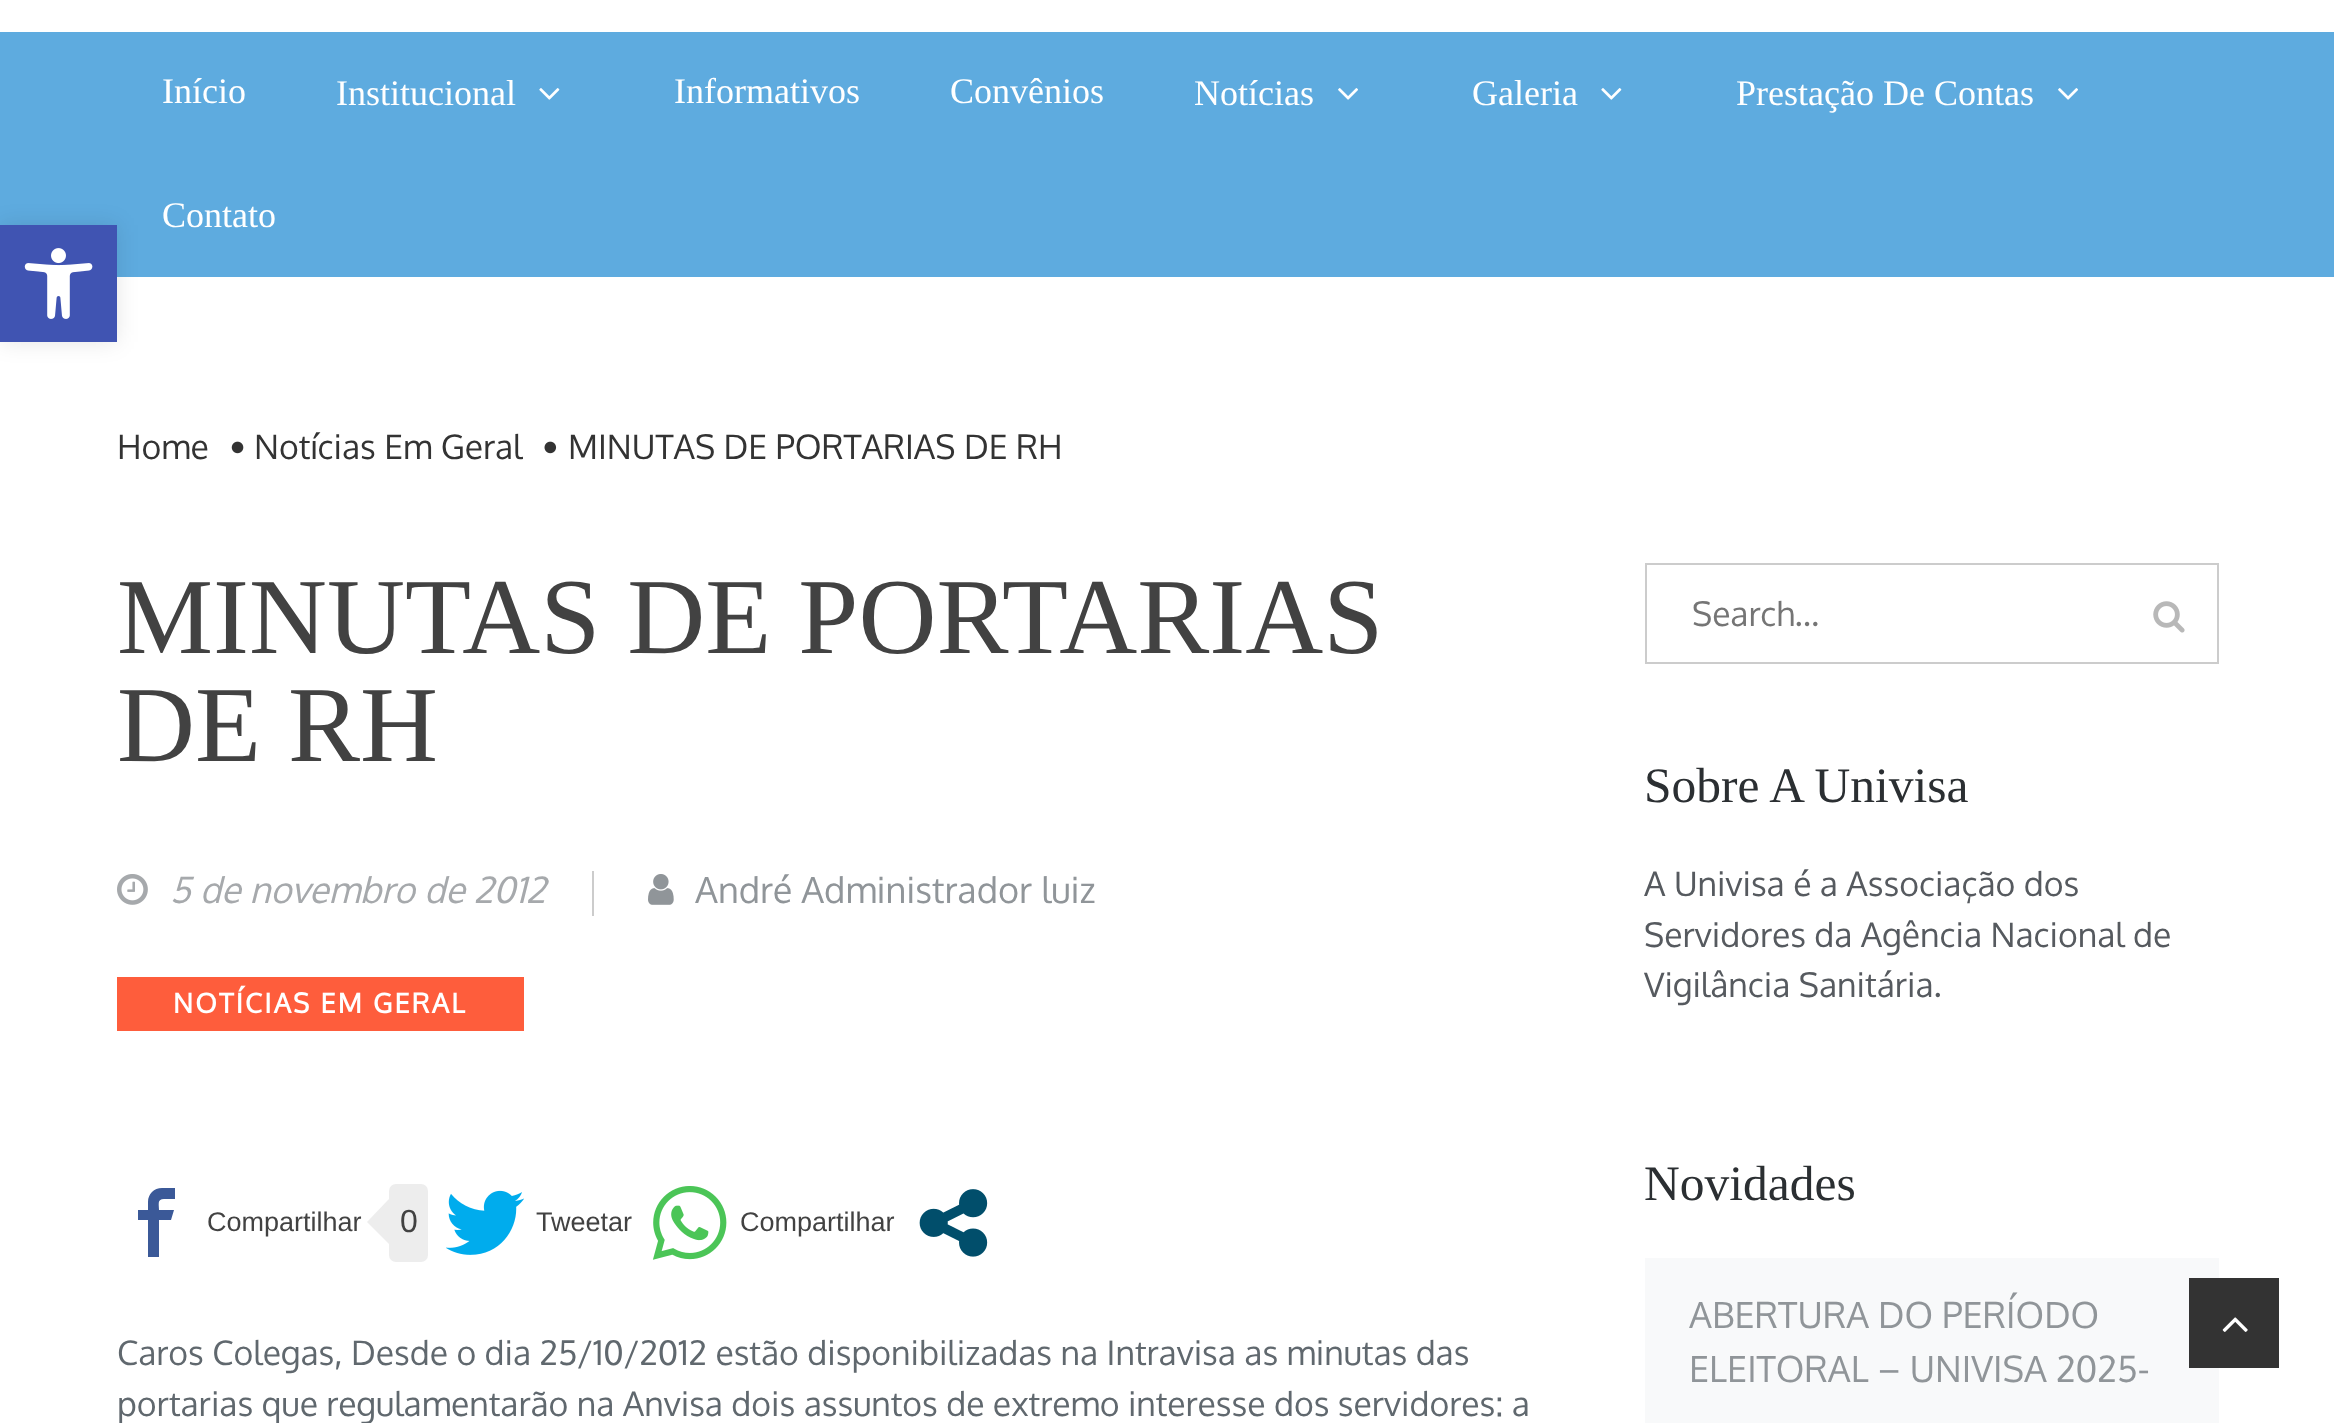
<svg xmlns="http://www.w3.org/2000/svg" width="2334" height="1423">
	<rect width="100%" height="100%" fill="#FFFFFF" />
	<rect x="0" y="32" width="2334" height="245" fill="#5EABDF" />
	<rect x="0" y="225" width="117" height="117" fill="#000000" fill-opacity="0.1" filter="blur(11px)" />
	<rect x="0" y="225" width="117" height="117" fill="#4054B2" />
	<image x="24" y="248" width="69" height="71" href="assets/img1.png" />
	<g font-family="Liberation Serif" font-size="36" fill="#FFFFFF">
		<text x="162" y="103">Início</text>
		<text x="336" y="105">Institucional</text>
	</g>
	<image x="539" y="88" width="21" height="12" href="assets/img2.png" />
	<g font-family="Liberation Serif" font-size="36" fill="#FFFFFF">
		<text x="674" y="103">Informativos</text>
		<text x="950" y="103">Convênios</text>
		<text x="1194" y="105">Notícias</text>
	</g>
	<image x="1338" y="88" width="20" height="12" href="assets/img3.png" />
	<text x="1472" y="105" font-family="Liberation Serif" font-size="36" fill="#FFFFFF">Galeria</text>
	<image x="1601" y="88" width="21" height="12" href="assets/img2.png" />
	<text x="1736" y="105" font-family="Liberation Serif" font-size="36" fill="#FFFFFF">Prestação De Contas</text>
	<image x="2058" y="88" width="20" height="12" href="assets/img3.png" />
	<text x="162" y="227" font-family="Liberation Serif" font-size="36" fill="#FFFFFF">Contato</text>
	<text x="117" y="459" font-family="Oxygen" font-size="33.75" fill="#333333">Home</text>
	<image x="231" y="441" width="13" height="13" href="assets/img4.png" />
	<text x="254" y="459" font-family="Oxygen" font-size="33.75" fill="#333333">Notícias Em Geral</text>
	<image x="544" y="441" width="13" height="13" href="assets/img5.png" />
	<text x="568" y="459" font-family="Oxygen" font-size="33.75" fill="#333333">MINUTAS DE PORTARIAS DE RH</text>
	<g font-family="Liberation Serif" font-size="108" fill="#424242">
		<text x="117" y="653">MINUTAS DE PORTARIAS</text>
		<text x="117" y="761">DE RH</text>
	</g>
	<image x="117" y="874" width="31" height="31" href="assets/img6.png" />
	<text x="170" y="903" font-family="Oxygen" font-size="36" font-style="italic" fill="#A6A9AC">5 de novembro de 2012</text>
	<rect x="592" y="871" width="2" height="45" fill="#CCCCCC" />
	<image x="648" y="874" width="26" height="31" href="assets/img7.png" />
	<text x="695" y="903" font-family="Oxygen" font-size="36" fill="#909599">André Administrador luiz</text>
	<rect x="117" y="977" width="407" height="54" fill="#FE5D3C" />
	<text x="173" y="1013" font-family="Oxygen" font-size="27" font-weight="700" letter-spacing="2.25" fill="#FFFFFF">NOTÍCIAS EM GERAL</text>
	<path d="M162 1188C154 1188 148 1194 148 1202V1210H138V1220H148V1257H159V1220H171L174 1210H159C159 1204 157 1199 164 1199H175V1188Z" fill="#3B5998" />
	<text x="207" y="1231" font-family="Liberation Sans" font-size="27" fill="#424242">Compartilhar</text>
	<rect x="389" y="1184" width="39" height="78" rx="7" fill="#EDEDED" />
	<path d="M389 1199V1244L367 1222Z" fill="#EDEDED" />
	<text x="400" y="1232" font-family="Liberation Sans" font-size="32" fill="#424242">0</text>
	<image x="446" y="1190" width="78" height="65" href="assets/img8.png" />
	<text x="536" y="1231" font-family="Liberation Sans" font-size="27" fill="#424242">Tweetar</text>
	<image x="652" y="1186" width="75" height="74" href="assets/img9.png" />
	<text x="740" y="1231" font-family="Liberation Sans" font-size="27" fill="#424242">Compartilhar</text>
	<image x="919" y="1189" width="69" height="68" href="assets/img10.png" />
	<g font-family="Oxygen" font-size="33.75" fill="#60686E">
		<text x="117" y="1365">Caros Colegas, Desde o dia 25/10/2012 estão disponibilizadas na Intravisa as minutas das</text>
		<text x="117" y="1416">portarias que regulamentarão na Anvisa dois assuntos de extremo interesse dos servidores: a</text>
	</g>
	<rect x="1646" y="564" width="572" height="99" fill="none" stroke="#CCCCCC" stroke-width="2" />
	<text x="1692" y="626" font-family="Oxygen" font-size="33.75" fill="#757575">Search...</text>
	<image x="2153" y="601" width="32" height="32" href="assets/img11.png" />
	<text x="1644" y="802" font-family="Liberation Serif" font-size="49.5" fill="#2B2F32">Sobre A Univisa</text>
	<g font-family="Oxygen" font-size="33.75" fill="#565A5F">
		<text x="1644" y="896">A Univisa é a Associação dos</text>
		<text x="1644" y="947">Servidores da Agência Nacional de</text>
		<text x="1644" y="997">Vigilância Sanitária.</text>
	</g>
	<text x="1644" y="1200" font-family="Liberation Serif" font-size="49.5" fill="#2B2F32">Novidades</text>
	<rect x="1645" y="1258" width="574" height="165" fill="#F8F9FA" />
	<g font-family="Oxygen" font-size="36" fill="#909599">
		<text x="1689" y="1328">ABERTURA DO PERÍODO</text>
		<text x="1689" y="1382">ELEITORAL – UNIVISA 2025-</text>
	</g>
	<rect x="2189" y="1278" width="90" height="90" fill="#333333" />
	<image x="2222" y="1317" width="26" height="15" href="assets/img12.png" />
</svg>
